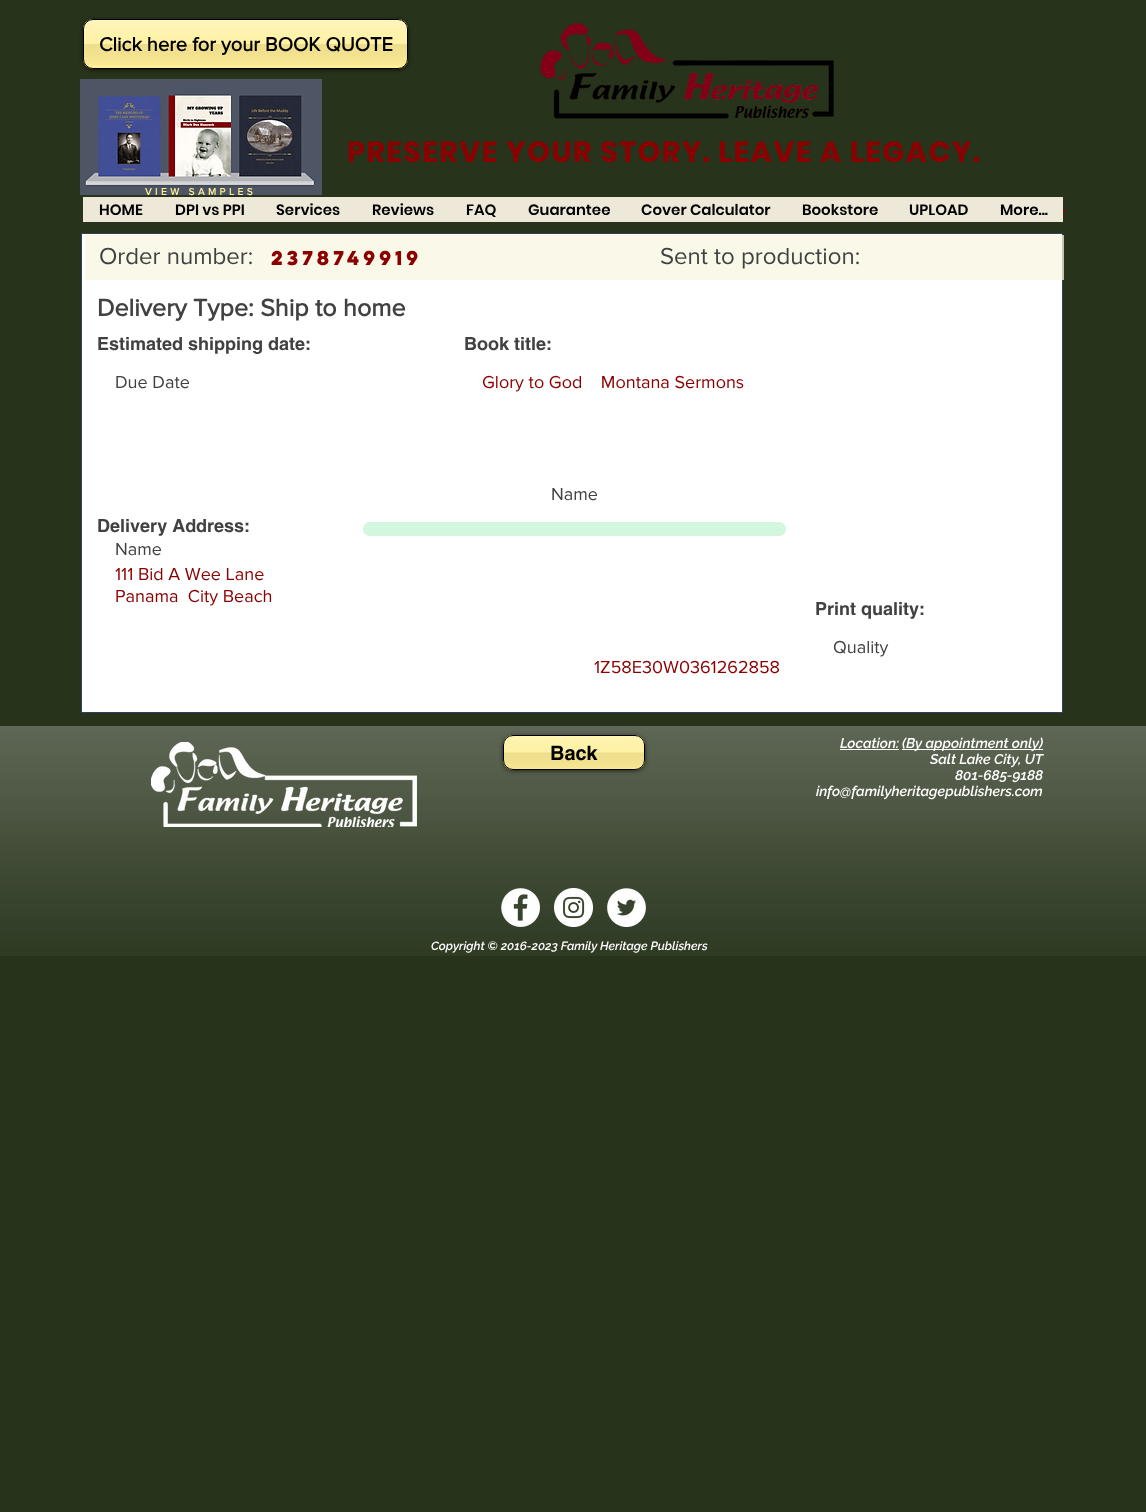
<svg xmlns="http://www.w3.org/2000/svg" width="1146" height="1512">
	<rect width="100%" height="100%" fill="#27331B" />
	<rect x="83" y="20" width="325" height="50" rx="10" fill="#000000" fill-opacity="0.6" filter="blur(2px)" />
	<rect x="83" y="19" width="325" height="50" rx="10" fill="#FFEF98" />
	<image x="83" y="19" width="325" height="46" href="assets/img1.png" />
	<rect x="83.5" y="19.5" width="324" height="49" rx="9.5" fill="none" stroke="#000000" />
	<text x="99" y="51" font-family="'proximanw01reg'" font-size="20" font-weight="700" fill="#000000">Click here for your BOOK QUOTE</text>
	<image x="540" y="22" width="294" height="97" href="assets/img2.png" />
	<text x="347" y="162" font-family="Poppins" font-size="29" font-weight="700" letter-spacing="1.45" fill="#8B0000">PRESERVE YOUR STORY. LEAVE A LEGACY.</text>
	<image x="80" y="79" width="242" height="116" href="assets/img3.png" />
	<text x="145" y="195" font-family="'proximanw01reg'" font-size="10" font-weight="700" letter-spacing="3.5" fill="#FFEF98">VIEW SAMPLES</text>
	<rect x="83" y="197" width="980" height="25" fill="#EEE8D8" />
	<g font-family="Poppins" font-size="15" font-weight="600" fill="#000000">
		<text x="99" y="215">HOME</text>
		<text x="175" y="215">DPI vs PPI</text>
		<text x="276" y="215">Services</text>
		<text x="372" y="215">Reviews</text>
		<text x="466" y="215">FAQ</text>
		<text x="528" y="215">Guarantee</text>
		<text x="641" y="215">Cover Calculator</text>
		<text x="802" y="215">Bookstore</text>
		<text x="909" y="215">UPLOAD</text>
		<text x="1000" y="215">More...</text>
	</g>
	<rect x="1063" y="210" width="2" height="2" fill="#8B0000" />
	<rect x="81.5" y="233.5" width="981" height="479" fill="#FFFFFF" stroke="#324158" />
	<rect x="85" y="235" width="979" height="45" fill="#F7F5E1" fill-opacity="0.75" />
	<text x="99" y="264" font-family="'proximanw01reg'" font-size="24" fill="#414141">Order number:</text>
	<text x="271" y="265" font-family="'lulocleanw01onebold'" font-size="18" font-weight="700" fill="#8B0000">2378749919</text>
	<text x="660" y="264" font-family="'proximanw01reg'" font-size="24" fill="#414141">Sent to production:</text>
	<text x="97" y="316" font-family="'proximanw01reg'" font-size="25" font-weight="700" fill="#414141">Delivery Type: Ship to home</text>
	<text x="97" y="350" font-family="helvetica" font-size="18" font-weight="700" fill="#414141">Estimated shipping date:</text>
	<text x="115" y="388" font-family="'proximanw01reg'" font-size="18" fill="#414141">Due Date</text>
	<text x="464" y="350" font-family="helvetica" font-size="18" font-weight="700" fill="#414141">Book title:</text>
	<text x="482" y="388" font-family="'proximanw01reg'" font-size="18" fill="#8B0000" xml:space="preserve">Glory to God    Montana Sermons</text>
	<text x="551" y="500" font-family="'proximanw01reg'" font-size="18" fill="#414141">Name</text>
	<text x="97" y="532" font-family="helvetica" font-size="18" font-weight="700" fill="#414141">Delivery Address:</text>
	<text x="115" y="580" font-family="'proximanw01reg'" font-size="18" fill="#8B0000">111 Bid A Wee Lane</text>
	<rect x="364.5" y="523.5" width="420" height="11" rx="5.5" fill="none" stroke="#D2F6DE" stroke-width="3" />
	<rect x="366" y="525" width="417" height="8" rx="4" fill="#D2F6DE" />
	<text x="115" y="555" font-family="'proximanw01reg'" font-size="18" fill="#414141">Name</text>
	<text x="115" y="602" font-family="'proximanw01reg'" font-size="18" fill="#8B0000" xml:space="preserve">Panama  City Beach</text>
	<text x="815" y="615" font-family="helvetica" font-size="18" font-weight="700" fill="#414141">Print quality:</text>
	<text x="833" y="653" font-family="'proximanw01reg'" font-size="18" fill="#414141">Quality</text>
	<text x="594" y="673" font-family="'proximanw01reg'" font-size="18" fill="#8B0000">1Z58E30W0361262858</text>
	<image x="0" y="726" width="1146" height="230" href="assets/img4.png" />
	<image x="151" y="742" width="266" height="85" href="assets/img5.png" />
	<rect x="503" y="736" width="142" height="35" rx="10" fill="#000000" fill-opacity="0.6" filter="blur(2px)" />
	<rect x="503" y="735" width="142" height="35" rx="10" fill="#FFEF98" />
	<image x="503" y="735" width="142" height="35" href="assets/img6.png" />
	<rect x="503.5" y="735.5" width="141" height="34" rx="9.5" fill="none" stroke="#000000" />
	<text x="550" y="760" font-family="helvetica" font-size="20" font-weight="700" fill="#000000">Back</text>
	<text x="840" y="748" font-family="Raleway" font-size="14" font-weight="600" font-style="italic" fill="#FFFFFF">Location:</text>
	<rect x="840" y="749" width="59" height="1" fill="#FFFFFF" />
	<rect x="902" y="749" width="141" height="1" fill="#FFFFFF" />
	<g font-family="Raleway" font-size="14" font-weight="600" font-style="italic" fill="#FFFFFF">
		<text x="902" y="748">(By appointment only)</text>
		<text x="930" y="764">Salt Lake City, UT</text>
		<text x="955" y="780">801-685-9188</text>
		<text x="816" y="796">info@familyheritagepublishers.com</text>
	</g>
	<image x="501" y="888" width="39" height="39" href="assets/img7.png" />
	<image x="554" y="888" width="39" height="39" href="assets/img8.png" />
	<image x="607" y="888" width="39" height="39" href="assets/img9.png" />
	<text x="431" y="950" font-family="Raleway" font-size="12" font-weight="600" font-style="italic" fill="#FFFFFF">Copyright © 2016-2023 Family Heritage Publishers</text>
</svg>
